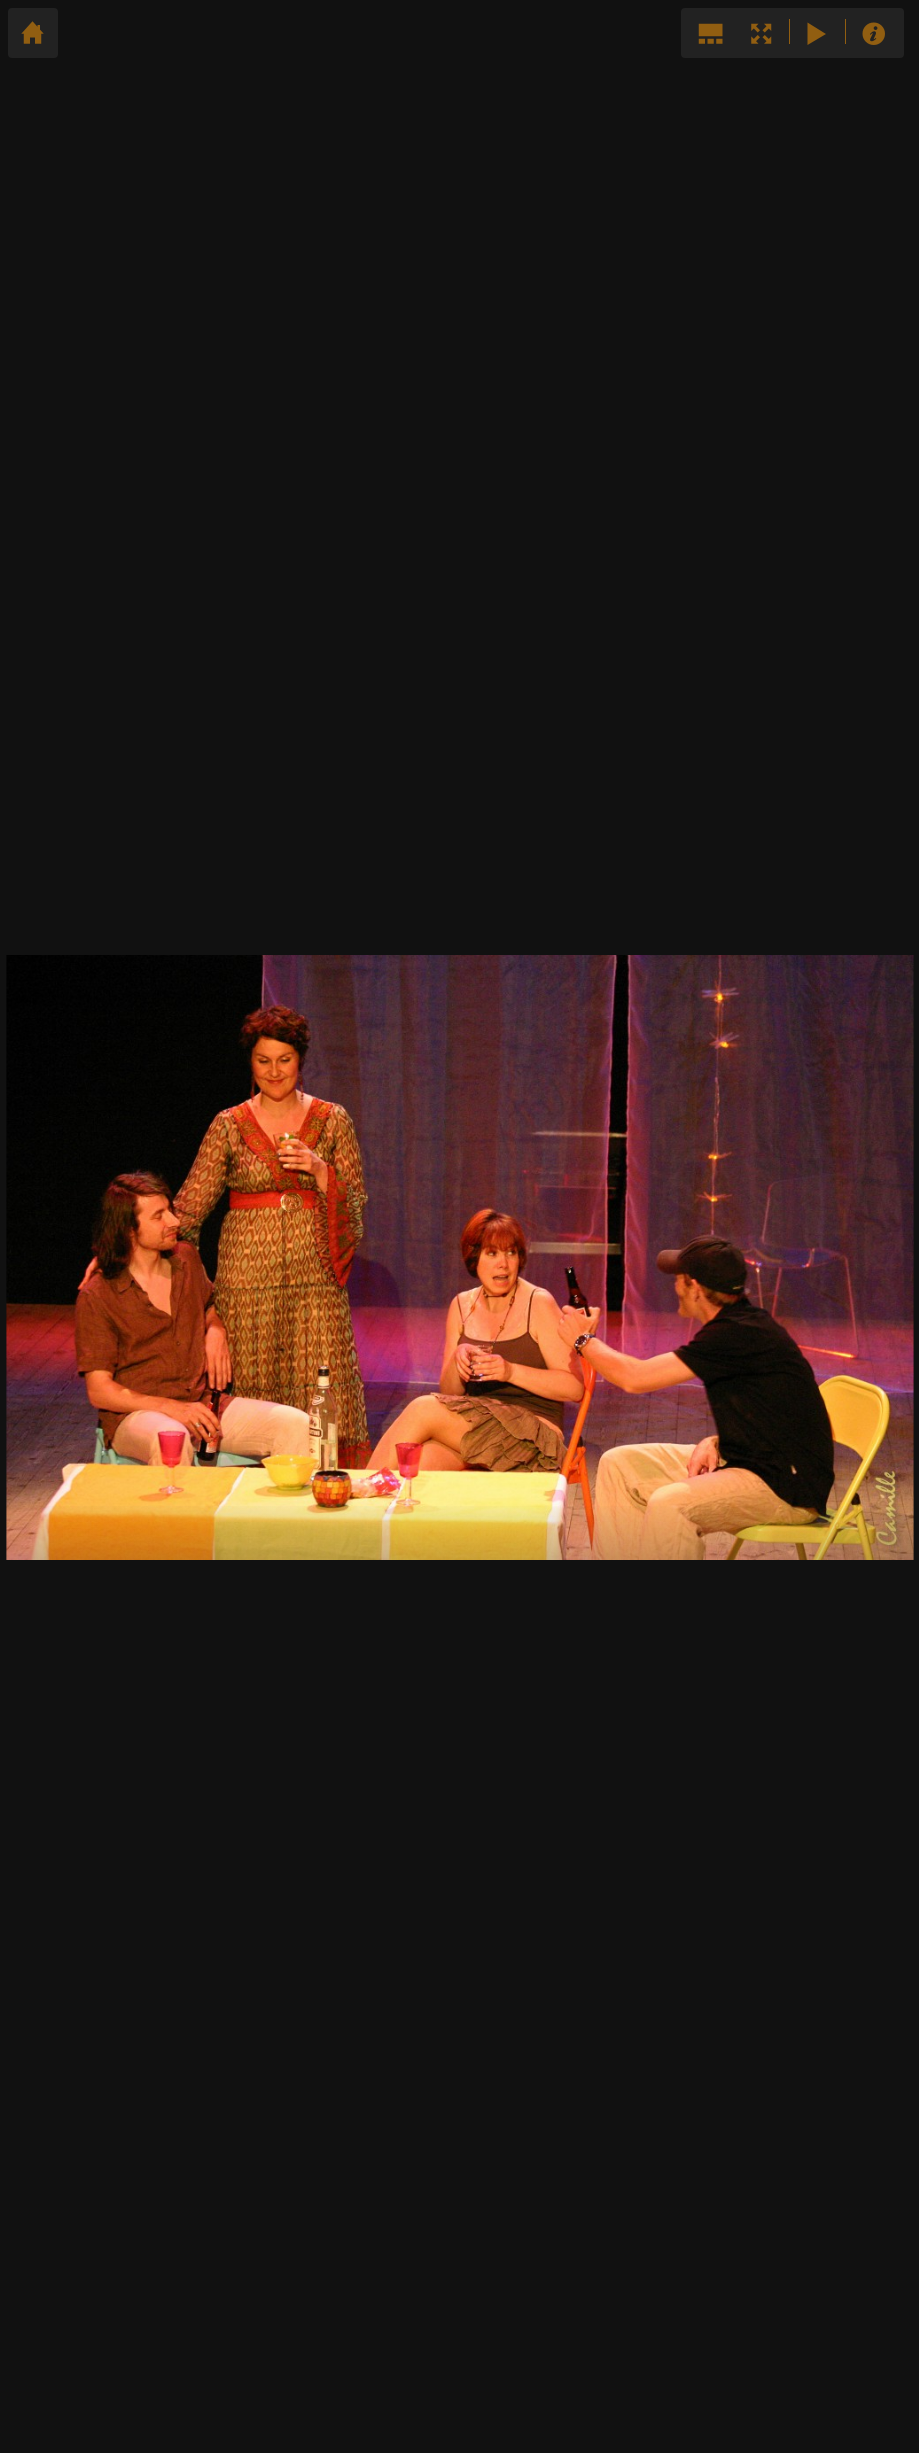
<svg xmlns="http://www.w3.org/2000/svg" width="919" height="2453">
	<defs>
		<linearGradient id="g1" gradientUnits="userSpaceOnUse" x1="460" y1="1501" x2="460" y2="1560"><stop offset="0" stop-color="#333333" stop-opacity="0" /><stop offset="1" stop-color="#333333" stop-opacity="0.25" /></linearGradient>
	</defs>
	<rect width="100%" height="100%" fill="#111111" />
	<rect x="8" y="8" width="50" height="50" rx="4" fill="#222222" />
	<image x="21" y="21" width="23" height="23" href="assets/img1.png" />
	<rect x="681" y="8" width="223" height="50" rx="4" fill="#222222" />
	<image x="698" y="23" width="25" height="21" href="assets/img2.png" />
	<image x="751" y="23" width="21" height="21" href="assets/img3.png" />
	<rect x="789" y="19" width="1" height="25" fill="#915E11" />
	<path d="M807.5 45L826 34L807.5 22.5Z" fill="#915E11" />
	<rect x="845" y="19" width="1" height="25" fill="#915E11" />
	<image x="862" y="22" width="23" height="23" href="assets/img4.png" />
	<image x="6" y="955" width="908" height="605" href="assets/img5.png" />
	<rect x="6" y="1506" width="908" height="54" fill="url(#g1)" />
</svg>
